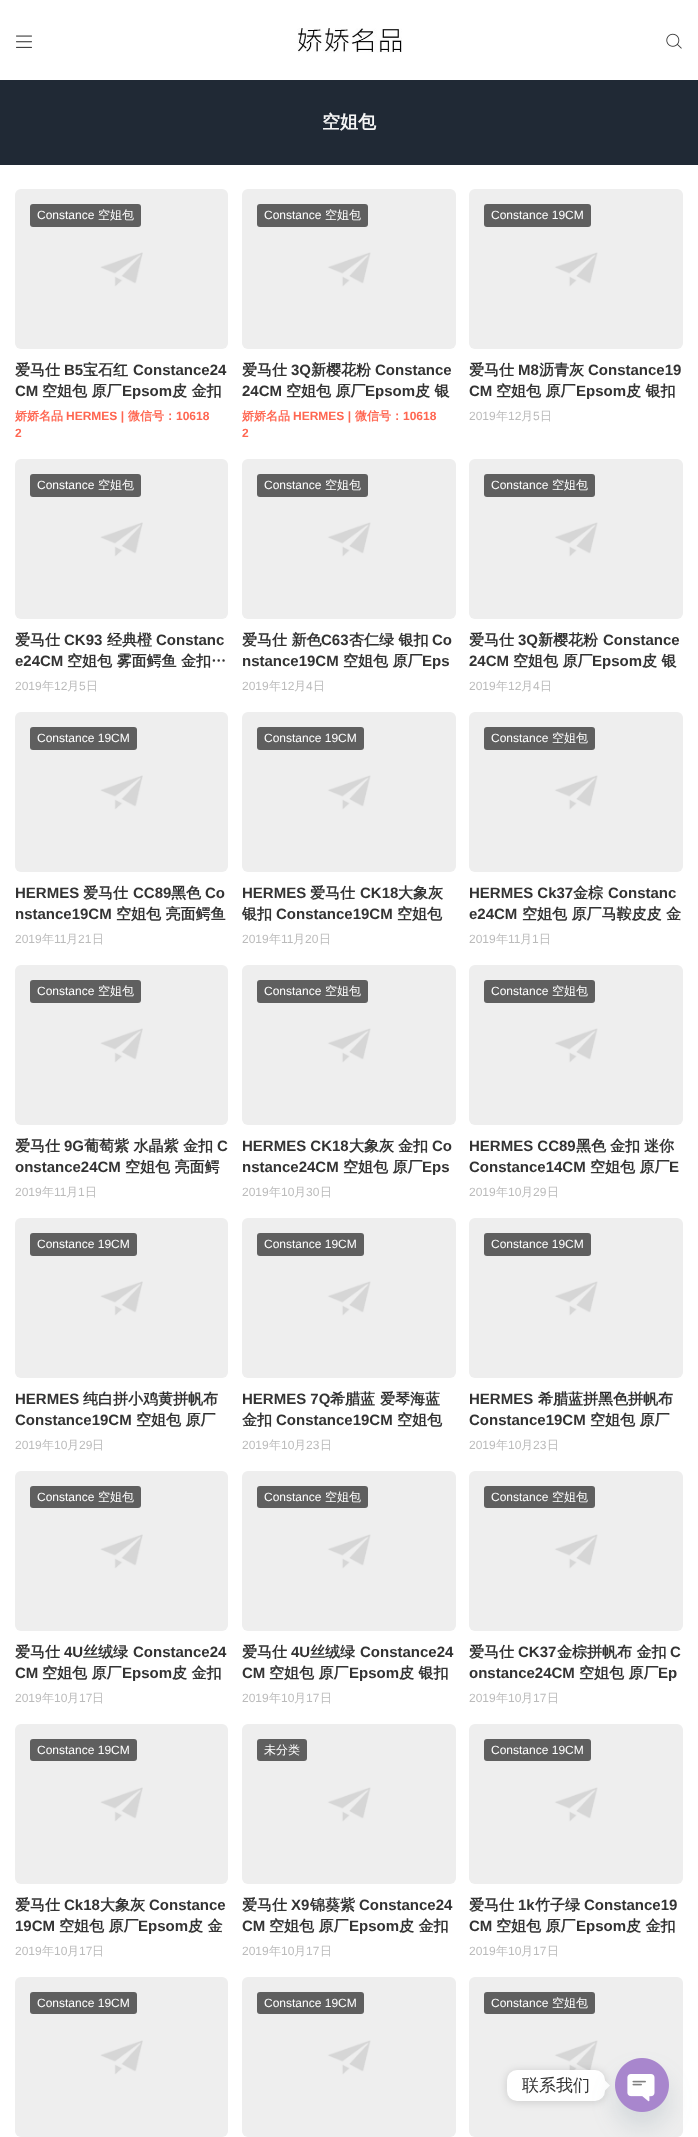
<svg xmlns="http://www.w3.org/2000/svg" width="698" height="2137">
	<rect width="100%" height="100%" fill="#FFFFFF" />
	<image x="16" y="35" width="16" height="13" href="assets/img1.png" />
	<image x="297" y="28" width="105" height="25" href="assets/img2.png" />
	<image x="666" y="33" width="16" height="16" href="assets/img3.png" />
	<rect x="0" y="80" width="698" height="85" fill="#202935" />
	<text x="322" y="128" font-family="WenQuanYi Zen Hei" font-size="18" font-weight="700" fill="#F6F6F6">空姐包</text>
	<image x="15" y="189" width="213" height="160" href="assets/img4.png" />
	<rect x="30" y="204" width="111" height="23" rx="3" fill="#5F5F5F" />
	<text x="37" y="219" font-family="Liberation Sans" font-size="12" fill="#FFFFFF">Constance</text>
	<text x="98" y="219" font-family="WenQuanYi Zen Hei" font-size="12" font-weight="500" fill="#FFFFFF">空姐包</text>
	<text x="15" y="375" font-family="WenQuanYi Zen Hei" font-size="15" font-weight="700" fill="#333333">爱马仕</text>
	<text x="64" y="375" font-family="Liberation Sans" font-size="15" font-weight="700" fill="#333333">B5</text>
	<text x="83" y="375" font-family="WenQuanYi Zen Hei" font-size="15" font-weight="700" fill="#333333">宝石红</text>
	<g font-family="Liberation Sans" font-size="15" font-weight="700" fill="#333333">
		<text x="133" y="375">Constance24</text>
		<text x="15" y="396">CM</text>
	</g>
	<text x="42" y="396" font-family="WenQuanYi Zen Hei" font-size="15" font-weight="700" fill="#333333">空姐包 原厂</text>
	<text x="122" y="396" font-family="Liberation Sans" font-size="15" font-weight="700" fill="#333333">Epsom</text>
	<text x="172" y="396" font-family="WenQuanYi Zen Hei" font-size="15" font-weight="700" fill="#333333">皮 金扣</text>
	<text x="15" y="420" font-family="WenQuanYi Zen Hei" font-size="12" font-weight="700" fill="#FF6651">娇娇名品</text>
	<text x="66" y="420" font-family="Liberation Sans" font-size="12" font-weight="700" fill="#FF6651">HERMES |</text>
	<text x="128" y="420" font-family="WenQuanYi Zen Hei" font-size="12" font-weight="700" fill="#FF6651">微信号：</text>
	<g font-family="Liberation Sans" font-size="12" font-weight="700" fill="#FF6651">
		<text x="176" y="420">10618</text>
		<text x="15" y="437">2</text>
	</g>
	<image x="242" y="189" width="214" height="160" href="assets/img5.png" />
	<rect x="257" y="204" width="111" height="23" rx="3" fill="#5F5F5F" />
	<text x="264" y="219" font-family="Liberation Sans" font-size="12" fill="#FFFFFF">Constance</text>
	<text x="325" y="219" font-family="WenQuanYi Zen Hei" font-size="12" font-weight="500" fill="#FFFFFF">空姐包</text>
	<text x="242" y="375" font-family="WenQuanYi Zen Hei" font-size="15" font-weight="700" fill="#333333">爱马仕</text>
	<text x="291" y="375" font-family="Liberation Sans" font-size="15" font-weight="700" fill="#333333">3Q</text>
	<text x="311" y="375" font-family="WenQuanYi Zen Hei" font-size="15" font-weight="700" fill="#333333">新樱花粉</text>
	<g font-family="Liberation Sans" font-size="15" font-weight="700" fill="#333333">
		<text x="375" y="375">Constance</text>
		<text x="242" y="396">24CM</text>
	</g>
	<text x="286" y="396" font-family="WenQuanYi Zen Hei" font-size="15" font-weight="700" fill="#333333">空姐包 原厂</text>
	<text x="365" y="396" font-family="Liberation Sans" font-size="15" font-weight="700" fill="#333333">Epsom</text>
	<text x="415" y="396" font-family="WenQuanYi Zen Hei" font-size="15" font-weight="700" fill="#333333">皮 银</text>
	<text x="242" y="420" font-family="WenQuanYi Zen Hei" font-size="12" font-weight="700" fill="#FF6651">娇娇名品</text>
	<text x="293" y="420" font-family="Liberation Sans" font-size="12" font-weight="700" fill="#FF6651">HERMES |</text>
	<text x="355" y="420" font-family="WenQuanYi Zen Hei" font-size="12" font-weight="700" fill="#FF6651">微信号：</text>
	<g font-family="Liberation Sans" font-size="12" font-weight="700" fill="#FF6651">
		<text x="403" y="420">10618</text>
		<text x="242" y="437">2</text>
	</g>
	<image x="469" y="189" width="214" height="160" href="assets/img5.png" />
	<rect x="484" y="204" width="107" height="23" rx="3" fill="#5F5F5F" />
	<text x="491" y="219" font-family="Liberation Sans" font-size="12" fill="#FFFFFF">Constance 19CM</text>
	<text x="469" y="375" font-family="WenQuanYi Zen Hei" font-size="15" font-weight="700" fill="#333333">爱马仕</text>
	<text x="518" y="375" font-family="Liberation Sans" font-size="15" font-weight="700" fill="#333333">M8</text>
	<text x="539" y="375" font-family="WenQuanYi Zen Hei" font-size="15" font-weight="700" fill="#333333">沥青灰</text>
	<g font-family="Liberation Sans" font-size="15" font-weight="700" fill="#333333">
		<text x="588" y="375">Constance19</text>
		<text x="469" y="396">CM</text>
	</g>
	<text x="496" y="396" font-family="WenQuanYi Zen Hei" font-size="15" font-weight="700" fill="#333333">空姐包 原厂</text>
	<text x="576" y="396" font-family="Liberation Sans" font-size="15" font-weight="700" fill="#333333">Epsom</text>
	<text x="626" y="396" font-family="WenQuanYi Zen Hei" font-size="15" font-weight="700" fill="#333333">皮 银扣</text>
	<text x="469" y="420" font-family="Liberation Sans" font-size="12" fill="#BBBBBB">2019</text>
	<text x="496" y="420" font-family="WenQuanYi Zen Hei" font-size="12" font-weight="500" fill="#BBBBBB">年</text>
	<text x="508" y="420" font-family="Liberation Sans" font-size="12" fill="#BBBBBB">12</text>
	<text x="521" y="420" font-family="WenQuanYi Zen Hei" font-size="12" font-weight="500" fill="#BBBBBB">月</text>
	<text x="533" y="420" font-family="Liberation Sans" font-size="12" fill="#BBBBBB">5</text>
	<text x="540" y="420" font-family="WenQuanYi Zen Hei" font-size="12" font-weight="500" fill="#BBBBBB">日</text>
	<image x="15" y="459" width="213" height="160" href="assets/img4.png" />
	<rect x="30" y="474" width="111" height="23" rx="3" fill="#5F5F5F" />
	<text x="37" y="489" font-family="Liberation Sans" font-size="12" fill="#FFFFFF">Constance</text>
	<text x="98" y="489" font-family="WenQuanYi Zen Hei" font-size="12" font-weight="500" fill="#FFFFFF">空姐包</text>
	<text x="15" y="645" font-family="WenQuanYi Zen Hei" font-size="15" font-weight="700" fill="#333333">爱马仕</text>
	<text x="64" y="645" font-family="Liberation Sans" font-size="15" font-weight="700" fill="#333333">CK93</text>
	<text x="107" y="645" font-family="WenQuanYi Zen Hei" font-size="15" font-weight="700" fill="#333333">经典橙</text>
	<g font-family="Liberation Sans" font-size="15" font-weight="700" fill="#333333">
		<text x="156" y="645">Constanc</text>
		<text x="15" y="666">e24CM</text>
	</g>
	<text x="67" y="666" font-family="WenQuanYi Zen Hei" font-size="15" font-weight="700" fill="#333333">空姐包 雾面鳄鱼 金扣…</text>
	<text x="15" y="690" font-family="Liberation Sans" font-size="12" fill="#BBBBBB">2019</text>
	<text x="42" y="690" font-family="WenQuanYi Zen Hei" font-size="12" font-weight="500" fill="#BBBBBB">年</text>
	<text x="54" y="690" font-family="Liberation Sans" font-size="12" fill="#BBBBBB">12</text>
	<text x="67" y="690" font-family="WenQuanYi Zen Hei" font-size="12" font-weight="500" fill="#BBBBBB">月</text>
	<text x="79" y="690" font-family="Liberation Sans" font-size="12" fill="#BBBBBB">5</text>
	<text x="86" y="690" font-family="WenQuanYi Zen Hei" font-size="12" font-weight="500" fill="#BBBBBB">日</text>
	<image x="242" y="459" width="214" height="160" href="assets/img5.png" />
	<rect x="257" y="474" width="111" height="23" rx="3" fill="#5F5F5F" />
	<text x="264" y="489" font-family="Liberation Sans" font-size="12" fill="#FFFFFF">Constance</text>
	<text x="325" y="489" font-family="WenQuanYi Zen Hei" font-size="12" font-weight="500" fill="#FFFFFF">空姐包</text>
	<text x="242" y="645" font-family="WenQuanYi Zen Hei" font-size="15" font-weight="700" fill="#333333">爱马仕 新色</text>
	<text x="321" y="645" font-family="Liberation Sans" font-size="15" font-weight="700" fill="#333333">C63</text>
	<text x="349" y="645" font-family="WenQuanYi Zen Hei" font-size="15" font-weight="700" fill="#333333">杏仁绿 银扣</text>
	<g font-family="Liberation Sans" font-size="15" font-weight="700" fill="#333333">
		<text x="432" y="645">Co</text>
		<text x="242" y="666">nstance19CM</text>
	</g>
	<text x="343" y="666" font-family="WenQuanYi Zen Hei" font-size="15" font-weight="700" fill="#333333">空姐包 原厂</text>
	<text x="422" y="666" font-family="Liberation Sans" font-size="15" font-weight="700" fill="#333333">Eps</text>
	<text x="242" y="690" font-family="Liberation Sans" font-size="12" fill="#BBBBBB">2019</text>
	<text x="269" y="690" font-family="WenQuanYi Zen Hei" font-size="12" font-weight="500" fill="#BBBBBB">年</text>
	<text x="281" y="690" font-family="Liberation Sans" font-size="12" fill="#BBBBBB">12</text>
	<text x="294" y="690" font-family="WenQuanYi Zen Hei" font-size="12" font-weight="500" fill="#BBBBBB">月</text>
	<text x="306" y="690" font-family="Liberation Sans" font-size="12" fill="#BBBBBB">4</text>
	<text x="313" y="690" font-family="WenQuanYi Zen Hei" font-size="12" font-weight="500" fill="#BBBBBB">日</text>
	<image x="469" y="459" width="214" height="160" href="assets/img5.png" />
	<rect x="484" y="474" width="111" height="23" rx="3" fill="#5F5F5F" />
	<text x="491" y="489" font-family="Liberation Sans" font-size="12" fill="#FFFFFF">Constance</text>
	<text x="552" y="489" font-family="WenQuanYi Zen Hei" font-size="12" font-weight="500" fill="#FFFFFF">空姐包</text>
	<text x="469" y="645" font-family="WenQuanYi Zen Hei" font-size="15" font-weight="700" fill="#333333">爱马仕</text>
	<text x="518" y="645" font-family="Liberation Sans" font-size="15" font-weight="700" fill="#333333">3Q</text>
	<text x="538" y="645" font-family="WenQuanYi Zen Hei" font-size="15" font-weight="700" fill="#333333">新樱花粉</text>
	<g font-family="Liberation Sans" font-size="15" font-weight="700" fill="#333333">
		<text x="603" y="645">Constance</text>
		<text x="469" y="666">24CM</text>
	</g>
	<text x="513" y="666" font-family="WenQuanYi Zen Hei" font-size="15" font-weight="700" fill="#333333">空姐包 原厂</text>
	<text x="592" y="666" font-family="Liberation Sans" font-size="15" font-weight="700" fill="#333333">Epsom</text>
	<text x="642" y="666" font-family="WenQuanYi Zen Hei" font-size="15" font-weight="700" fill="#333333">皮 银</text>
	<text x="469" y="690" font-family="Liberation Sans" font-size="12" fill="#BBBBBB">2019</text>
	<text x="496" y="690" font-family="WenQuanYi Zen Hei" font-size="12" font-weight="500" fill="#BBBBBB">年</text>
	<text x="508" y="690" font-family="Liberation Sans" font-size="12" fill="#BBBBBB">12</text>
	<text x="521" y="690" font-family="WenQuanYi Zen Hei" font-size="12" font-weight="500" fill="#BBBBBB">月</text>
	<text x="533" y="690" font-family="Liberation Sans" font-size="12" fill="#BBBBBB">4</text>
	<text x="540" y="690" font-family="WenQuanYi Zen Hei" font-size="12" font-weight="500" fill="#BBBBBB">日</text>
	<image x="15" y="712" width="213" height="160" href="assets/img4.png" />
	<rect x="30" y="727" width="107" height="23" rx="3" fill="#5F5F5F" />
	<text x="37" y="742" font-family="Liberation Sans" font-size="12" fill="#FFFFFF">Constance 19CM</text>
	<text x="15" y="898" font-family="Liberation Sans" font-size="15" font-weight="700" fill="#333333">HERMES</text>
	<text x="83" y="898" font-family="WenQuanYi Zen Hei" font-size="15" font-weight="700" fill="#333333">爱马仕</text>
	<text x="133" y="898" font-family="Liberation Sans" font-size="15" font-weight="700" fill="#333333">CC89</text>
	<text x="171" y="898" font-family="WenQuanYi Zen Hei" font-size="15" font-weight="700" fill="#333333">黑色</text>
	<g font-family="Liberation Sans" font-size="15" font-weight="700" fill="#333333">
		<text x="205" y="898">Co</text>
		<text x="15" y="919">nstance19CM</text>
	</g>
	<text x="116" y="919" font-family="WenQuanYi Zen Hei" font-size="15" font-weight="700" fill="#333333">空姐包 亮面鳄鱼</text>
	<text x="15" y="943" font-family="Liberation Sans" font-size="12" fill="#BBBBBB">2019</text>
	<text x="42" y="943" font-family="WenQuanYi Zen Hei" font-size="12" font-weight="500" fill="#BBBBBB">年</text>
	<text x="54" y="943" font-family="Liberation Sans" font-size="12" fill="#BBBBBB">11</text>
	<text x="66" y="943" font-family="WenQuanYi Zen Hei" font-size="12" font-weight="500" fill="#BBBBBB">月</text>
	<text x="78" y="943" font-family="Liberation Sans" font-size="12" fill="#BBBBBB">21</text>
	<text x="92" y="943" font-family="WenQuanYi Zen Hei" font-size="12" font-weight="500" fill="#BBBBBB">日</text>
	<image x="242" y="712" width="214" height="160" href="assets/img5.png" />
	<rect x="257" y="727" width="107" height="23" rx="3" fill="#5F5F5F" />
	<text x="264" y="742" font-family="Liberation Sans" font-size="12" fill="#FFFFFF">Constance 19CM</text>
	<text x="242" y="898" font-family="Liberation Sans" font-size="15" font-weight="700" fill="#333333">HERMES</text>
	<text x="310" y="898" font-family="WenQuanYi Zen Hei" font-size="15" font-weight="700" fill="#333333">爱马仕</text>
	<text x="360" y="898" font-family="Liberation Sans" font-size="15" font-weight="700" fill="#333333">CK18</text>
	<g font-family="WenQuanYi Zen Hei" font-size="15" font-weight="700" fill="#333333">
		<text x="398" y="898">大象灰</text>
		<text x="242" y="919">银扣</text>
	</g>
	<text x="276" y="919" font-family="Liberation Sans" font-size="15" font-weight="700" fill="#333333">Constance19CM</text>
	<text x="397" y="919" font-family="WenQuanYi Zen Hei" font-size="15" font-weight="700" fill="#333333">空姐包</text>
	<text x="242" y="943" font-family="Liberation Sans" font-size="12" fill="#BBBBBB">2019</text>
	<text x="269" y="943" font-family="WenQuanYi Zen Hei" font-size="12" font-weight="500" fill="#BBBBBB">年</text>
	<text x="281" y="943" font-family="Liberation Sans" font-size="12" fill="#BBBBBB">11</text>
	<text x="293" y="943" font-family="WenQuanYi Zen Hei" font-size="12" font-weight="500" fill="#BBBBBB">月</text>
	<text x="305" y="943" font-family="Liberation Sans" font-size="12" fill="#BBBBBB">20</text>
	<text x="319" y="943" font-family="WenQuanYi Zen Hei" font-size="12" font-weight="500" fill="#BBBBBB">日</text>
	<image x="469" y="712" width="214" height="160" href="assets/img5.png" />
	<rect x="484" y="727" width="111" height="23" rx="3" fill="#5F5F5F" />
	<text x="491" y="742" font-family="Liberation Sans" font-size="12" fill="#FFFFFF">Constance</text>
	<text x="552" y="742" font-family="WenQuanYi Zen Hei" font-size="12" font-weight="500" fill="#FFFFFF">空姐包</text>
	<text x="469" y="898" font-family="Liberation Sans" font-size="15" font-weight="700" fill="#333333">HERMES Ck37</text>
	<text x="573" y="898" font-family="WenQuanYi Zen Hei" font-size="15" font-weight="700" fill="#333333">金棕</text>
	<g font-family="Liberation Sans" font-size="15" font-weight="700" fill="#333333">
		<text x="608" y="898">Constanc</text>
		<text x="469" y="919">e24CM</text>
	</g>
	<text x="522" y="919" font-family="WenQuanYi Zen Hei" font-size="15" font-weight="700" fill="#333333">空姐包 原厂马鞍皮皮 金</text>
	<text x="469" y="943" font-family="Liberation Sans" font-size="12" fill="#BBBBBB">2019</text>
	<text x="496" y="943" font-family="WenQuanYi Zen Hei" font-size="12" font-weight="500" fill="#BBBBBB">年</text>
	<text x="508" y="943" font-family="Liberation Sans" font-size="12" fill="#BBBBBB">11</text>
	<text x="520" y="943" font-family="WenQuanYi Zen Hei" font-size="12" font-weight="500" fill="#BBBBBB">月</text>
	<text x="532" y="943" font-family="Liberation Sans" font-size="12" fill="#BBBBBB">1</text>
	<text x="539" y="943" font-family="WenQuanYi Zen Hei" font-size="12" font-weight="500" fill="#BBBBBB">日</text>
	<image x="15" y="965" width="213" height="160" href="assets/img4.png" />
	<rect x="30" y="980" width="111" height="23" rx="3" fill="#5F5F5F" />
	<text x="37" y="995" font-family="Liberation Sans" font-size="12" fill="#FFFFFF">Constance</text>
	<text x="98" y="995" font-family="WenQuanYi Zen Hei" font-size="12" font-weight="500" fill="#FFFFFF">空姐包</text>
	<text x="15" y="1151" font-family="WenQuanYi Zen Hei" font-size="15" font-weight="700" fill="#333333">爱马仕</text>
	<text x="64" y="1151" font-family="Liberation Sans" font-size="15" font-weight="700" fill="#333333">9G</text>
	<text x="84" y="1151" font-family="WenQuanYi Zen Hei" font-size="15" font-weight="700" fill="#333333">葡萄紫 水晶紫 金扣</text>
	<g font-family="Liberation Sans" font-size="15" font-weight="700" fill="#333333">
		<text x="217" y="1151">C</text>
		<text x="15" y="1172">onstance24CM</text>
	</g>
	<text x="125" y="1172" font-family="WenQuanYi Zen Hei" font-size="15" font-weight="700" fill="#333333">空姐包 亮面鳄</text>
	<text x="15" y="1196" font-family="Liberation Sans" font-size="12" fill="#BBBBBB">2019</text>
	<text x="42" y="1196" font-family="WenQuanYi Zen Hei" font-size="12" font-weight="500" fill="#BBBBBB">年</text>
	<text x="54" y="1196" font-family="Liberation Sans" font-size="12" fill="#BBBBBB">11</text>
	<text x="66" y="1196" font-family="WenQuanYi Zen Hei" font-size="12" font-weight="500" fill="#BBBBBB">月</text>
	<text x="78" y="1196" font-family="Liberation Sans" font-size="12" fill="#BBBBBB">1</text>
	<text x="85" y="1196" font-family="WenQuanYi Zen Hei" font-size="12" font-weight="500" fill="#BBBBBB">日</text>
	<image x="242" y="965" width="214" height="160" href="assets/img5.png" />
	<rect x="257" y="980" width="111" height="23" rx="3" fill="#5F5F5F" />
	<text x="264" y="995" font-family="Liberation Sans" font-size="12" fill="#FFFFFF">Constance</text>
	<text x="325" y="995" font-family="WenQuanYi Zen Hei" font-size="12" font-weight="500" fill="#FFFFFF">空姐包</text>
	<text x="242" y="1151" font-family="Liberation Sans" font-size="15" font-weight="700" fill="#333333">HERMES CK18</text>
	<g font-family="WenQuanYi Zen Hei" font-size="15" font-weight="700" fill="#333333">
		<text x="349" y="1151">大象灰</text>
		<text x="398" y="1151">金扣</text>
	</g>
	<g font-family="Liberation Sans" font-size="15" font-weight="700" fill="#333333">
		<text x="432" y="1151">Co</text>
		<text x="242" y="1172">nstance24CM</text>
	</g>
	<text x="343" y="1172" font-family="WenQuanYi Zen Hei" font-size="15" font-weight="700" fill="#333333">空姐包 原厂</text>
	<text x="422" y="1172" font-family="Liberation Sans" font-size="15" font-weight="700" fill="#333333">Eps</text>
	<text x="242" y="1196" font-family="Liberation Sans" font-size="12" fill="#BBBBBB">2019</text>
	<text x="269" y="1196" font-family="WenQuanYi Zen Hei" font-size="12" font-weight="500" fill="#BBBBBB">年</text>
	<text x="281" y="1196" font-family="Liberation Sans" font-size="12" fill="#BBBBBB">10</text>
	<text x="294" y="1196" font-family="WenQuanYi Zen Hei" font-size="12" font-weight="500" fill="#BBBBBB">月</text>
	<text x="306" y="1196" font-family="Liberation Sans" font-size="12" fill="#BBBBBB">30</text>
	<text x="320" y="1196" font-family="WenQuanYi Zen Hei" font-size="12" font-weight="500" fill="#BBBBBB">日</text>
	<image x="469" y="965" width="214" height="160" href="assets/img5.png" />
	<rect x="484" y="980" width="111" height="23" rx="3" fill="#5F5F5F" />
	<text x="491" y="995" font-family="Liberation Sans" font-size="12" fill="#FFFFFF">Constance</text>
	<text x="552" y="995" font-family="WenQuanYi Zen Hei" font-size="12" font-weight="500" fill="#FFFFFF">空姐包</text>
	<text x="469" y="1151" font-family="Liberation Sans" font-size="15" font-weight="700" fill="#333333">HERMES CC89</text>
	<g font-family="WenQuanYi Zen Hei" font-size="15" font-weight="700" fill="#333333">
		<text x="576" y="1151">黑色</text>
		<text x="610" y="1151">金扣</text>
		<text x="644" y="1151">迷你</text>
	</g>
	<text x="469" y="1172" font-family="Liberation Sans" font-size="15" font-weight="700" fill="#333333">Constance14CM</text>
	<text x="590" y="1172" font-family="WenQuanYi Zen Hei" font-size="15" font-weight="700" fill="#333333">空姐包 原厂</text>
	<text x="669" y="1172" font-family="Liberation Sans" font-size="15" font-weight="700" fill="#333333">E</text>
	<text x="469" y="1196" font-family="Liberation Sans" font-size="12" fill="#BBBBBB">2019</text>
	<text x="496" y="1196" font-family="WenQuanYi Zen Hei" font-size="12" font-weight="500" fill="#BBBBBB">年</text>
	<text x="508" y="1196" font-family="Liberation Sans" font-size="12" fill="#BBBBBB">10</text>
	<text x="521" y="1196" font-family="WenQuanYi Zen Hei" font-size="12" font-weight="500" fill="#BBBBBB">月</text>
	<text x="533" y="1196" font-family="Liberation Sans" font-size="12" fill="#BBBBBB">29</text>
	<text x="547" y="1196" font-family="WenQuanYi Zen Hei" font-size="12" font-weight="500" fill="#BBBBBB">日</text>
	<image x="15" y="1218" width="213" height="160" href="assets/img4.png" />
	<rect x="30" y="1233" width="107" height="23" rx="3" fill="#5F5F5F" />
	<text x="37" y="1248" font-family="Liberation Sans" font-size="12" fill="#FFFFFF">Constance 19CM</text>
	<text x="15" y="1404" font-family="Liberation Sans" font-size="15" font-weight="700" fill="#333333">HERMES</text>
	<text x="83" y="1404" font-family="WenQuanYi Zen Hei" font-size="15" font-weight="700" fill="#333333">纯白拼小鸡黄拼帆布</text>
	<text x="15" y="1425" font-family="Liberation Sans" font-size="15" font-weight="700" fill="#333333">Constance19CM</text>
	<text x="136" y="1425" font-family="WenQuanYi Zen Hei" font-size="15" font-weight="700" fill="#333333">空姐包 原厂</text>
	<text x="15" y="1449" font-family="Liberation Sans" font-size="12" fill="#BBBBBB">2019</text>
	<text x="42" y="1449" font-family="WenQuanYi Zen Hei" font-size="12" font-weight="500" fill="#BBBBBB">年</text>
	<text x="54" y="1449" font-family="Liberation Sans" font-size="12" fill="#BBBBBB">10</text>
	<text x="67" y="1449" font-family="WenQuanYi Zen Hei" font-size="12" font-weight="500" fill="#BBBBBB">月</text>
	<text x="79" y="1449" font-family="Liberation Sans" font-size="12" fill="#BBBBBB">29</text>
	<text x="92" y="1449" font-family="WenQuanYi Zen Hei" font-size="12" font-weight="500" fill="#BBBBBB">日</text>
	<image x="242" y="1218" width="214" height="160" href="assets/img5.png" />
	<rect x="257" y="1233" width="107" height="23" rx="3" fill="#5F5F5F" />
	<text x="264" y="1248" font-family="Liberation Sans" font-size="12" fill="#FFFFFF">Constance 19CM</text>
	<text x="242" y="1404" font-family="Liberation Sans" font-size="15" font-weight="700" fill="#333333">HERMES 7Q</text>
	<g font-family="WenQuanYi Zen Hei" font-size="15" font-weight="700" fill="#333333">
		<text x="330" y="1404">希腊蓝</text>
		<text x="380" y="1404">爱琴海蓝</text>
		<text x="242" y="1425">金扣</text>
	</g>
	<text x="276" y="1425" font-family="Liberation Sans" font-size="15" font-weight="700" fill="#333333">Constance19CM</text>
	<text x="397" y="1425" font-family="WenQuanYi Zen Hei" font-size="15" font-weight="700" fill="#333333">空姐包</text>
	<text x="242" y="1449" font-family="Liberation Sans" font-size="12" fill="#BBBBBB">2019</text>
	<text x="269" y="1449" font-family="WenQuanYi Zen Hei" font-size="12" font-weight="500" fill="#BBBBBB">年</text>
	<text x="281" y="1449" font-family="Liberation Sans" font-size="12" fill="#BBBBBB">10</text>
	<text x="294" y="1449" font-family="WenQuanYi Zen Hei" font-size="12" font-weight="500" fill="#BBBBBB">月</text>
	<text x="306" y="1449" font-family="Liberation Sans" font-size="12" fill="#BBBBBB">23</text>
	<text x="320" y="1449" font-family="WenQuanYi Zen Hei" font-size="12" font-weight="500" fill="#BBBBBB">日</text>
	<image x="469" y="1218" width="214" height="160" href="assets/img5.png" />
	<rect x="484" y="1233" width="107" height="23" rx="3" fill="#5F5F5F" />
	<text x="491" y="1248" font-family="Liberation Sans" font-size="12" fill="#FFFFFF">Constance 19CM</text>
	<text x="469" y="1404" font-family="Liberation Sans" font-size="15" font-weight="700" fill="#333333">HERMES</text>
	<text x="538" y="1404" font-family="WenQuanYi Zen Hei" font-size="15" font-weight="700" fill="#333333">希腊蓝拼黑色拼帆布</text>
	<text x="469" y="1425" font-family="Liberation Sans" font-size="15" font-weight="700" fill="#333333">Constance19CM</text>
	<text x="590" y="1425" font-family="WenQuanYi Zen Hei" font-size="15" font-weight="700" fill="#333333">空姐包 原厂</text>
	<text x="469" y="1449" font-family="Liberation Sans" font-size="12" fill="#BBBBBB">2019</text>
	<text x="496" y="1449" font-family="WenQuanYi Zen Hei" font-size="12" font-weight="500" fill="#BBBBBB">年</text>
	<text x="508" y="1449" font-family="Liberation Sans" font-size="12" fill="#BBBBBB">10</text>
	<text x="521" y="1449" font-family="WenQuanYi Zen Hei" font-size="12" font-weight="500" fill="#BBBBBB">月</text>
	<text x="533" y="1449" font-family="Liberation Sans" font-size="12" fill="#BBBBBB">23</text>
	<text x="547" y="1449" font-family="WenQuanYi Zen Hei" font-size="12" font-weight="500" fill="#BBBBBB">日</text>
	<image x="15" y="1471" width="213" height="160" href="assets/img4.png" />
	<rect x="30" y="1486" width="111" height="22" rx="3" fill="#5F5F5F" />
	<text x="37" y="1501" font-family="Liberation Sans" font-size="12" fill="#FFFFFF">Constance</text>
	<text x="98" y="1501" font-family="WenQuanYi Zen Hei" font-size="12" font-weight="500" fill="#FFFFFF">空姐包</text>
	<text x="15" y="1657" font-family="WenQuanYi Zen Hei" font-size="15" font-weight="700" fill="#333333">爱马仕</text>
	<text x="64" y="1657" font-family="Liberation Sans" font-size="15" font-weight="700" fill="#333333">4U</text>
	<text x="83" y="1657" font-family="WenQuanYi Zen Hei" font-size="15" font-weight="700" fill="#333333">丝绒绿</text>
	<g font-family="Liberation Sans" font-size="15" font-weight="700" fill="#333333">
		<text x="133" y="1657">Constance24</text>
		<text x="15" y="1678">CM</text>
	</g>
	<text x="42" y="1678" font-family="WenQuanYi Zen Hei" font-size="15" font-weight="700" fill="#333333">空姐包 原厂</text>
	<text x="122" y="1678" font-family="Liberation Sans" font-size="15" font-weight="700" fill="#333333">Epsom</text>
	<text x="172" y="1678" font-family="WenQuanYi Zen Hei" font-size="15" font-weight="700" fill="#333333">皮 金扣</text>
	<text x="15" y="1702" font-family="Liberation Sans" font-size="12" fill="#BBBBBB">2019</text>
	<text x="42" y="1702" font-family="WenQuanYi Zen Hei" font-size="12" font-weight="500" fill="#BBBBBB">年</text>
	<text x="54" y="1702" font-family="Liberation Sans" font-size="12" fill="#BBBBBB">10</text>
	<text x="67" y="1702" font-family="WenQuanYi Zen Hei" font-size="12" font-weight="500" fill="#BBBBBB">月</text>
	<text x="79" y="1702" font-family="Liberation Sans" font-size="12" fill="#BBBBBB">17</text>
	<text x="92" y="1702" font-family="WenQuanYi Zen Hei" font-size="12" font-weight="500" fill="#BBBBBB">日</text>
	<image x="242" y="1471" width="214" height="160" href="assets/img5.png" />
	<rect x="257" y="1486" width="111" height="22" rx="3" fill="#5F5F5F" />
	<text x="264" y="1501" font-family="Liberation Sans" font-size="12" fill="#FFFFFF">Constance</text>
	<text x="325" y="1501" font-family="WenQuanYi Zen Hei" font-size="12" font-weight="500" fill="#FFFFFF">空姐包</text>
	<text x="242" y="1657" font-family="WenQuanYi Zen Hei" font-size="15" font-weight="700" fill="#333333">爱马仕</text>
	<text x="291" y="1657" font-family="Liberation Sans" font-size="15" font-weight="700" fill="#333333">4U</text>
	<text x="310" y="1657" font-family="WenQuanYi Zen Hei" font-size="15" font-weight="700" fill="#333333">丝绒绿</text>
	<g font-family="Liberation Sans" font-size="15" font-weight="700" fill="#333333">
		<text x="360" y="1657">Constance24</text>
		<text x="242" y="1678">CM</text>
	</g>
	<text x="269" y="1678" font-family="WenQuanYi Zen Hei" font-size="15" font-weight="700" fill="#333333">空姐包 原厂</text>
	<text x="349" y="1678" font-family="Liberation Sans" font-size="15" font-weight="700" fill="#333333">Epsom</text>
	<text x="399" y="1678" font-family="WenQuanYi Zen Hei" font-size="15" font-weight="700" fill="#333333">皮 银扣</text>
	<text x="242" y="1702" font-family="Liberation Sans" font-size="12" fill="#BBBBBB">2019</text>
	<text x="269" y="1702" font-family="WenQuanYi Zen Hei" font-size="12" font-weight="500" fill="#BBBBBB">年</text>
	<text x="281" y="1702" font-family="Liberation Sans" font-size="12" fill="#BBBBBB">10</text>
	<text x="294" y="1702" font-family="WenQuanYi Zen Hei" font-size="12" font-weight="500" fill="#BBBBBB">月</text>
	<text x="306" y="1702" font-family="Liberation Sans" font-size="12" fill="#BBBBBB">17</text>
	<text x="320" y="1702" font-family="WenQuanYi Zen Hei" font-size="12" font-weight="500" fill="#BBBBBB">日</text>
	<image x="469" y="1471" width="214" height="160" href="assets/img5.png" />
	<rect x="484" y="1486" width="111" height="22" rx="3" fill="#5F5F5F" />
	<text x="491" y="1501" font-family="Liberation Sans" font-size="12" fill="#FFFFFF">Constance</text>
	<text x="552" y="1501" font-family="WenQuanYi Zen Hei" font-size="12" font-weight="500" fill="#FFFFFF">空姐包</text>
	<text x="469" y="1657" font-family="WenQuanYi Zen Hei" font-size="15" font-weight="700" fill="#333333">爱马仕</text>
	<text x="518" y="1657" font-family="Liberation Sans" font-size="15" font-weight="700" fill="#333333">CK37</text>
	<text x="557" y="1657" font-family="WenQuanYi Zen Hei" font-size="15" font-weight="700" fill="#333333">金棕拼帆布 金扣</text>
	<g font-family="Liberation Sans" font-size="15" font-weight="700" fill="#333333">
		<text x="670" y="1657">C</text>
		<text x="469" y="1678">onstance24CM</text>
	</g>
	<text x="579" y="1678" font-family="WenQuanYi Zen Hei" font-size="15" font-weight="700" fill="#333333">空姐包 原厂</text>
	<text x="658" y="1678" font-family="Liberation Sans" font-size="15" font-weight="700" fill="#333333">Ep</text>
	<text x="469" y="1702" font-family="Liberation Sans" font-size="12" fill="#BBBBBB">2019</text>
	<text x="496" y="1702" font-family="WenQuanYi Zen Hei" font-size="12" font-weight="500" fill="#BBBBBB">年</text>
	<text x="508" y="1702" font-family="Liberation Sans" font-size="12" fill="#BBBBBB">10</text>
	<text x="521" y="1702" font-family="WenQuanYi Zen Hei" font-size="12" font-weight="500" fill="#BBBBBB">月</text>
	<text x="533" y="1702" font-family="Liberation Sans" font-size="12" fill="#BBBBBB">17</text>
	<text x="547" y="1702" font-family="WenQuanYi Zen Hei" font-size="12" font-weight="500" fill="#BBBBBB">日</text>
	<image x="15" y="1724" width="213" height="160" href="assets/img4.png" />
	<rect x="30" y="1739" width="107" height="22" rx="3" fill="#5F5F5F" />
	<text x="37" y="1754" font-family="Liberation Sans" font-size="12" fill="#FFFFFF">Constance 19CM</text>
	<text x="15" y="1910" font-family="WenQuanYi Zen Hei" font-size="15" font-weight="700" fill="#333333">爱马仕</text>
	<text x="64" y="1910" font-family="Liberation Sans" font-size="15" font-weight="700" fill="#333333">Ck18</text>
	<text x="100" y="1910" font-family="WenQuanYi Zen Hei" font-size="15" font-weight="700" fill="#333333">大象灰</text>
	<g font-family="Liberation Sans" font-size="15" font-weight="700" fill="#333333">
		<text x="149" y="1910">Constance</text>
		<text x="15" y="1931">19CM</text>
	</g>
	<text x="59" y="1931" font-family="WenQuanYi Zen Hei" font-size="15" font-weight="700" fill="#333333">空姐包 原厂</text>
	<text x="138" y="1931" font-family="Liberation Sans" font-size="15" font-weight="700" fill="#333333">Epsom</text>
	<text x="188" y="1931" font-family="WenQuanYi Zen Hei" font-size="15" font-weight="700" fill="#333333">皮 金</text>
	<text x="15" y="1955" font-family="Liberation Sans" font-size="12" fill="#BBBBBB">2019</text>
	<text x="42" y="1955" font-family="WenQuanYi Zen Hei" font-size="12" font-weight="500" fill="#BBBBBB">年</text>
	<text x="54" y="1955" font-family="Liberation Sans" font-size="12" fill="#BBBBBB">10</text>
	<text x="67" y="1955" font-family="WenQuanYi Zen Hei" font-size="12" font-weight="500" fill="#BBBBBB">月</text>
	<text x="79" y="1955" font-family="Liberation Sans" font-size="12" fill="#BBBBBB">17</text>
	<text x="92" y="1955" font-family="WenQuanYi Zen Hei" font-size="12" font-weight="500" fill="#BBBBBB">日</text>
	<image x="242" y="1724" width="214" height="160" href="assets/img5.png" />
	<rect x="257" y="1739" width="50" height="22" rx="3" fill="#5F5F5F" />
	<text x="264" y="1754" font-family="WenQuanYi Zen Hei" font-size="12" font-weight="500" fill="#FFFFFF">未分类</text>
	<text x="242" y="1910" font-family="WenQuanYi Zen Hei" font-size="15" font-weight="700" fill="#333333">爱马仕</text>
	<text x="291" y="1910" font-family="Liberation Sans" font-size="15" font-weight="700" fill="#333333">X9</text>
	<text x="310" y="1910" font-family="WenQuanYi Zen Hei" font-size="15" font-weight="700" fill="#333333">锦葵紫</text>
	<g font-family="Liberation Sans" font-size="15" font-weight="700" fill="#333333">
		<text x="359" y="1910">Constance24</text>
		<text x="242" y="1931">CM</text>
	</g>
	<text x="269" y="1931" font-family="WenQuanYi Zen Hei" font-size="15" font-weight="700" fill="#333333">空姐包 原厂</text>
	<text x="349" y="1931" font-family="Liberation Sans" font-size="15" font-weight="700" fill="#333333">Epsom</text>
	<text x="399" y="1931" font-family="WenQuanYi Zen Hei" font-size="15" font-weight="700" fill="#333333">皮 金扣</text>
	<text x="242" y="1955" font-family="Liberation Sans" font-size="12" fill="#BBBBBB">2019</text>
	<text x="269" y="1955" font-family="WenQuanYi Zen Hei" font-size="12" font-weight="500" fill="#BBBBBB">年</text>
	<text x="281" y="1955" font-family="Liberation Sans" font-size="12" fill="#BBBBBB">10</text>
	<text x="294" y="1955" font-family="WenQuanYi Zen Hei" font-size="12" font-weight="500" fill="#BBBBBB">月</text>
	<text x="306" y="1955" font-family="Liberation Sans" font-size="12" fill="#BBBBBB">17</text>
	<text x="320" y="1955" font-family="WenQuanYi Zen Hei" font-size="12" font-weight="500" fill="#BBBBBB">日</text>
	<image x="469" y="1724" width="214" height="160" href="assets/img5.png" />
	<rect x="484" y="1739" width="107" height="22" rx="3" fill="#5F5F5F" />
	<text x="491" y="1754" font-family="Liberation Sans" font-size="12" fill="#FFFFFF">Constance 19CM</text>
	<text x="469" y="1910" font-family="WenQuanYi Zen Hei" font-size="15" font-weight="700" fill="#333333">爱马仕</text>
	<text x="518" y="1910" font-family="Liberation Sans" font-size="15" font-weight="700" fill="#333333">1k</text>
	<text x="535" y="1910" font-family="WenQuanYi Zen Hei" font-size="15" font-weight="700" fill="#333333">竹子绿</text>
	<g font-family="Liberation Sans" font-size="15" font-weight="700" fill="#333333">
		<text x="584" y="1910">Constance19</text>
		<text x="469" y="1931">CM</text>
	</g>
	<text x="496" y="1931" font-family="WenQuanYi Zen Hei" font-size="15" font-weight="700" fill="#333333">空姐包 原厂</text>
	<text x="576" y="1931" font-family="Liberation Sans" font-size="15" font-weight="700" fill="#333333">Epsom</text>
	<text x="626" y="1931" font-family="WenQuanYi Zen Hei" font-size="15" font-weight="700" fill="#333333">皮 金扣</text>
	<text x="469" y="1955" font-family="Liberation Sans" font-size="12" fill="#BBBBBB">2019</text>
	<text x="496" y="1955" font-family="WenQuanYi Zen Hei" font-size="12" font-weight="500" fill="#BBBBBB">年</text>
	<text x="508" y="1955" font-family="Liberation Sans" font-size="12" fill="#BBBBBB">10</text>
	<text x="521" y="1955" font-family="WenQuanYi Zen Hei" font-size="12" font-weight="500" fill="#BBBBBB">月</text>
	<text x="533" y="1955" font-family="Liberation Sans" font-size="12" fill="#BBBBBB">17</text>
	<text x="547" y="1955" font-family="WenQuanYi Zen Hei" font-size="12" font-weight="500" fill="#BBBBBB">日</text>
	<image x="15" y="1977" width="213" height="160" href="assets/img4.png" />
	<rect x="30" y="1992" width="107" height="22" rx="3" fill="#5F5F5F" />
	<text x="37" y="2007" font-family="Liberation Sans" font-size="12" fill="#FFFFFF">Constance 19CM</text>
	<image x="242" y="1977" width="214" height="160" href="assets/img5.png" />
	<rect x="257" y="1992" width="107" height="22" rx="3" fill="#5F5F5F" />
	<text x="264" y="2007" font-family="Liberation Sans" font-size="12" fill="#FFFFFF">Constance 19CM</text>
	<image x="469" y="1977" width="214" height="160" href="assets/img5.png" />
	<rect x="484" y="1992" width="111" height="22" rx="3" fill="#5F5F5F" />
	<text x="491" y="2007" font-family="Liberation Sans" font-size="12" fill="#FFFFFF">Constance</text>
	<text x="552" y="2007" font-family="WenQuanYi Zen Hei" font-size="12" font-weight="500" fill="#FFFFFF">空姐包</text>
	<rect x="507" y="2071" width="98" height="31" rx="10" fill="#000000" fill-opacity="0.15" filter="blur(4px)" />
	<rect x="507" y="2070" width="98" height="31" rx="10" fill="#FFFFFF" />
	<text x="522" y="2091" font-family="WenQuanYi Zen Hei" font-size="17" font-weight="500" fill="#333333">联系我们</text>
	<path d="M605 2090.5V2080.5L610 2085.5Z" fill="#FFFFFF" />
	<rect x="615" y="2074" width="54" height="54" rx="27" fill="#49687E" fill-opacity="0.16" filter="blur(12px)" />
	<image x="615" y="2058" width="54" height="54" href="assets/img6.png" />
</svg>
